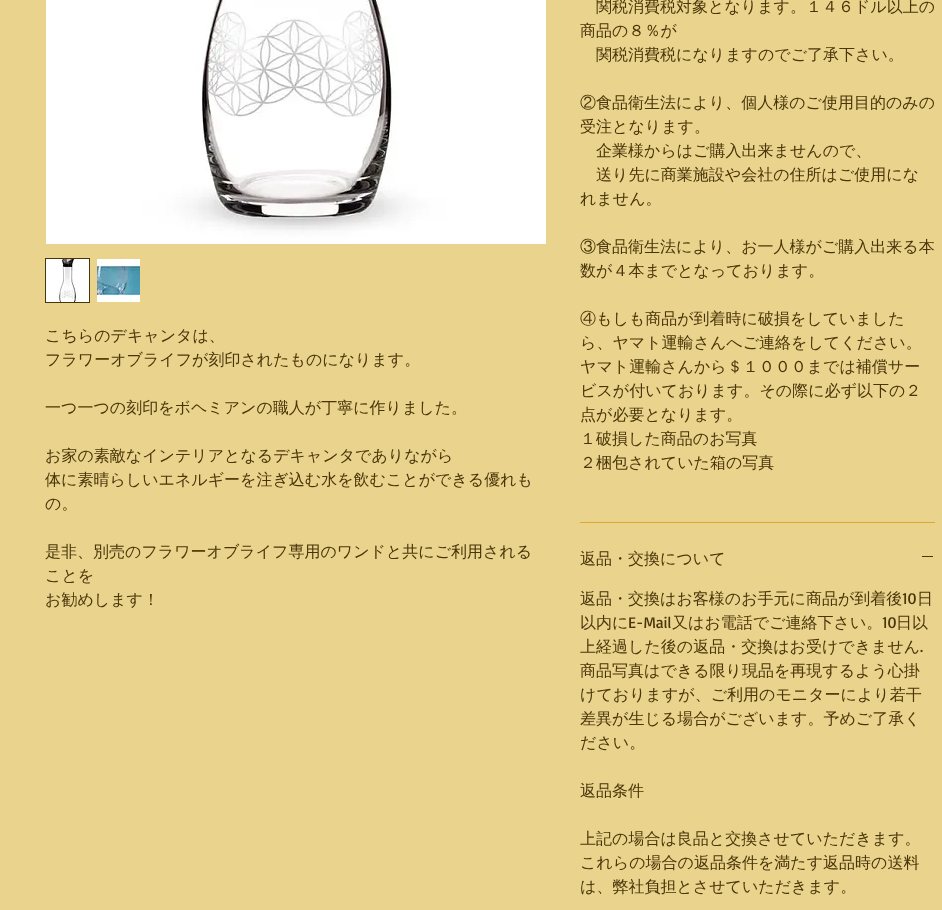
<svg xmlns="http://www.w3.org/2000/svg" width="942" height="910">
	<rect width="100%" height="100%" fill="#EAD38D" />
	<image x="46" y="0" width="500" height="244" href="assets/img1.png" />
	<rect x="45.5" y="258.5" width="44" height="44" fill="none" stroke="#493508" />
	<image x="46" y="259" width="43" height="43" href="assets/img2.png" />
	<image x="97" y="259" width="43" height="43" href="assets/img3.png" />
	<g font-family="WenQuanYi Zen Hei" font-size="16" font-weight="500" fill="#493508">
		<text x="45" y="341">こちらのデキャンタは、</text>
		<text x="45" y="365">フラワーオブライフが刻印されたものになります。</text>
		<text x="45" y="413">一つ一つの刻印をボヘミアンの職人が丁寧に作りました。</text>
		<text x="45" y="461">お家の素敵なインテリアとなるデキャンタでありながら</text>
		<text x="45" y="485">体に素晴らしいエネルギーを注ぎ込む水を飲むことができる優れも</text>
		<text x="45" y="509">の。</text>
		<text x="45" y="557">是非、別売のフラワーオブライフ専用のワンドと共にご利用される</text>
		<text x="45" y="581">ことを</text>
		<text x="45" y="605">お勧めします！</text>
	</g>
	<rect x="580" y="522" width="355" height="1" fill="#DDA92E" />
	<g font-family="WenQuanYi Zen Hei" font-size="16" font-weight="500" fill="#493508">
		<text x="596" y="12">関税消費税対象となります。１４６ドル以上の</text>
		<text x="580" y="36">商品の８％が</text>
		<text x="596" y="60">関税消費税になりますのでご了承下さい。</text>
		<text x="580" y="108">②食品衛生法により、個人様のご使用目的のみの</text>
		<text x="580" y="132">受注となります。</text>
		<text x="596" y="156">企業様からはご購入出来ませんので、</text>
		<text x="596" y="180">送り先に商業施設や会社の住所はご使用にな</text>
		<text x="580" y="204">れません。</text>
		<text x="580" y="252">③食品衛生法により、お一人様がご購入出来る本</text>
		<text x="580" y="276">数が４本までとなっております。</text>
		<text x="580" y="324">④もしも商品が到着時に破損をしていました</text>
		<text x="580" y="348">ら、ヤマト運輸さんへご連絡をしてください。</text>
		<text x="580" y="372">ヤマト運輸さんから＄１０００までは補償サー</text>
		<text x="580" y="396">ビスが付いております。その際に必ず以下の２</text>
		<text x="580" y="420">点が必要となります。</text>
		<text x="580" y="444">１破損した商品のお写真</text>
		<text x="580" y="468">２梱包されていた箱の写真</text>
		<text x="580" y="564">返品・交換について</text>
	</g>
	<rect x="922" y="556" width="11" height="1" fill="#493508" />
	<text x="580" y="604" font-family="WenQuanYi Zen Hei" font-size="16" font-weight="500" fill="#493508">返品・交換はお客様のお手元に商品が到着後</text>
	<text x="902" y="604" font-family="Basic" font-size="16" fill="#493508">10</text>
	<g font-family="WenQuanYi Zen Hei" font-size="16" font-weight="500" fill="#493508">
		<text x="917" y="604">日</text>
		<text x="580" y="628">以内に</text>
	</g>
	<text x="628" y="628" font-family="Basic" font-size="16" fill="#493508">E-Mail</text>
	<text x="672" y="628" font-family="WenQuanYi Zen Hei" font-size="16" font-weight="500" fill="#493508">又はお電話でご連絡下さい。</text>
	<text x="882" y="628" font-family="Basic" font-size="16" fill="#493508">10</text>
	<g font-family="WenQuanYi Zen Hei" font-size="16" font-weight="500" fill="#493508">
		<text x="896" y="628">日以</text>
		<text x="580" y="652">上経過した後の返品・交換はお受けできません</text>
	</g>
	<text x="920" y="652" font-family="Basic" font-size="16" fill="#493508">.</text>
	<g font-family="WenQuanYi Zen Hei" font-size="16" font-weight="500" fill="#493508">
		<text x="580" y="676">商品写真はできる限り現品を再現するよう心掛</text>
		<text x="580" y="700">けておりますが、ご利用のモニターにより若干</text>
		<text x="580" y="724">差異が生じる場合がございます。予めご了承く</text>
		<text x="580" y="748">ださい。</text>
		<text x="580" y="796">返品条件</text>
		<text x="580" y="844">上記の場合は良品と交換させていただきます。</text>
		<text x="580" y="868">これらの場合の返品条件を満たす返品時の送料</text>
		<text x="580" y="892">は、弊社負担とさせていただきます。</text>
	</g>
</svg>
